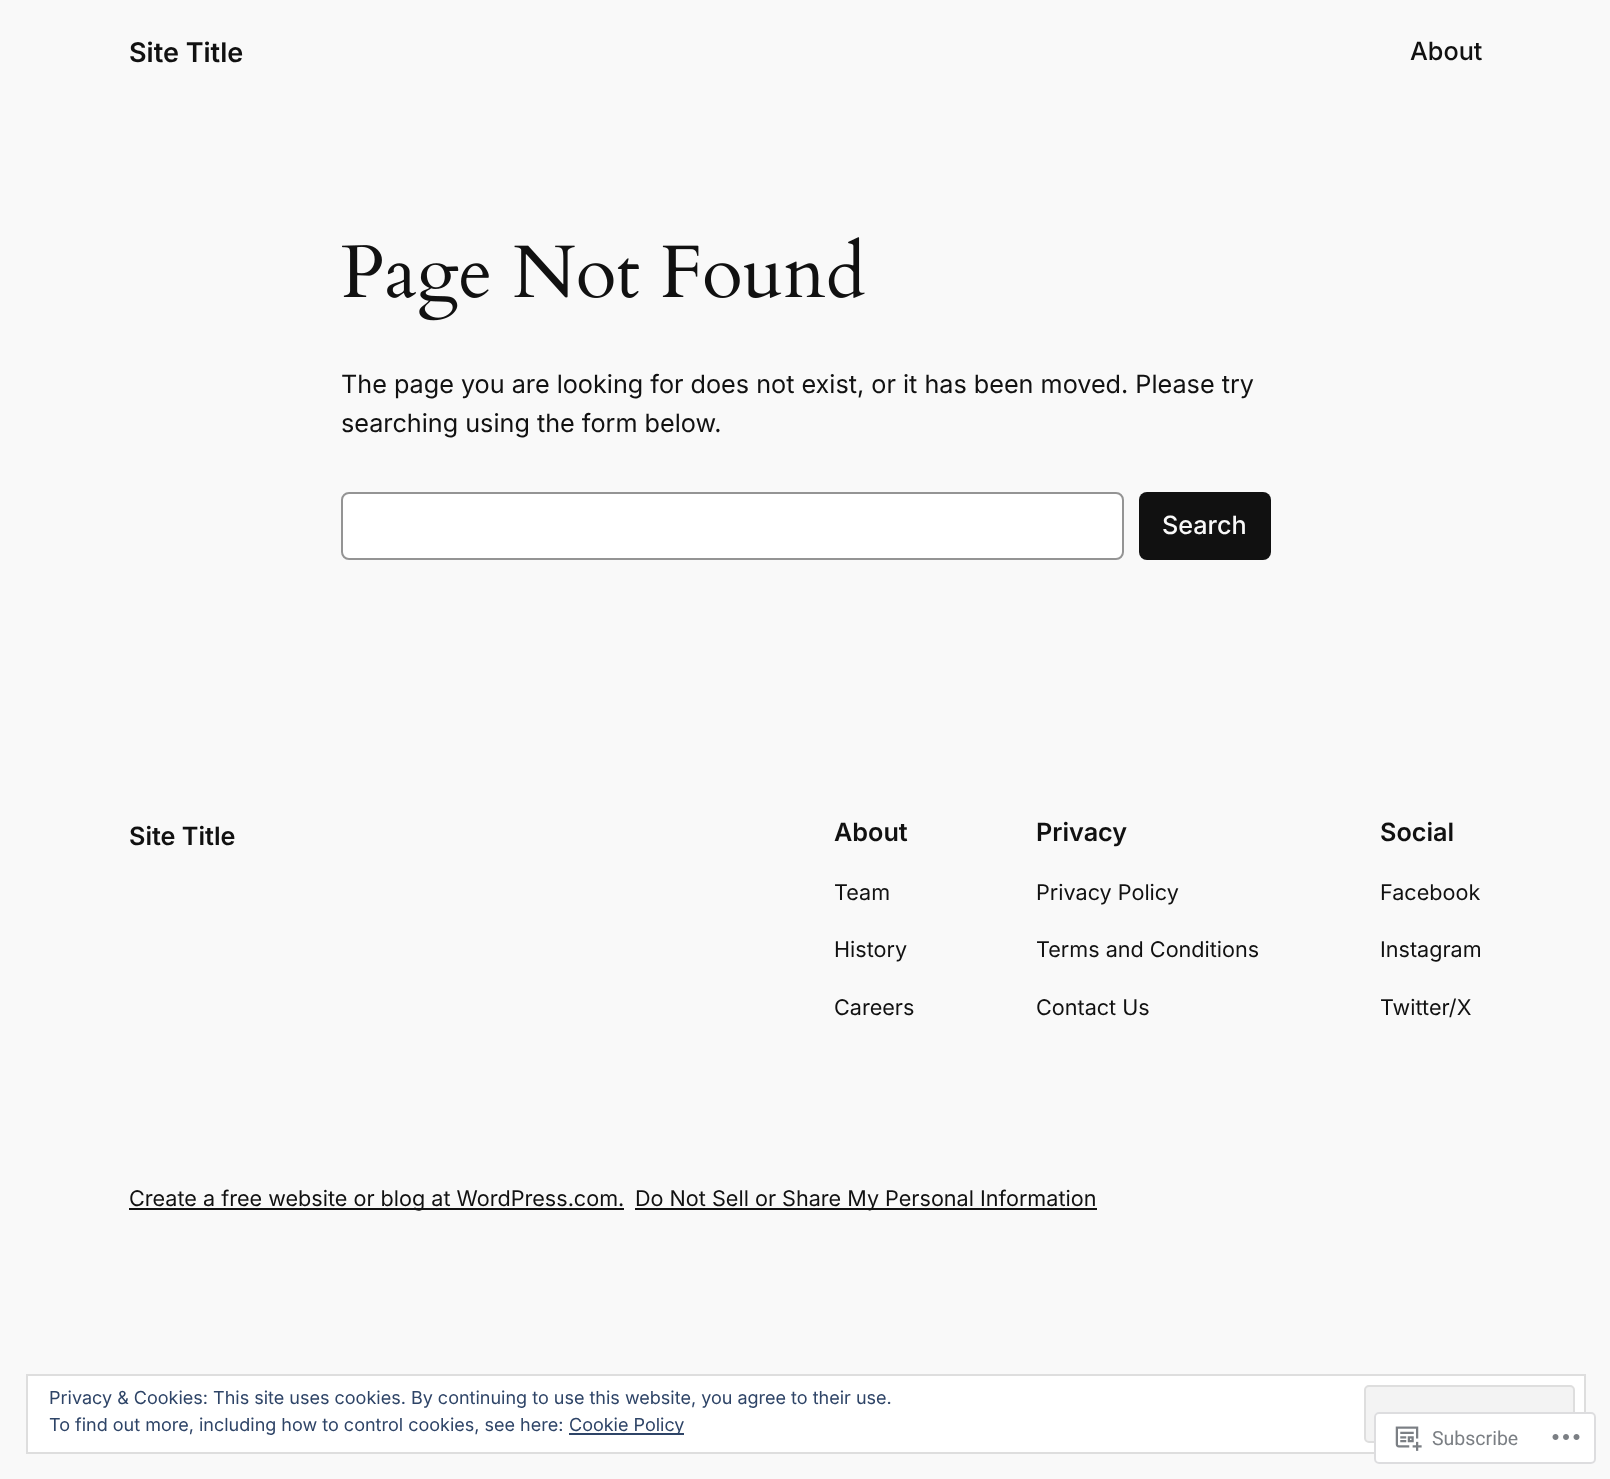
<svg xmlns="http://www.w3.org/2000/svg" width="1610" height="1479">
	<rect width="100%" height="100%" fill="#F9F9F9" />
	<text x="129" y="62" font-family="Inter" font-size="27" font-weight="600" fill="#111111">Site Title</text>
	<text x="1410" y="60" font-family="Inter" font-size="25.2" font-weight="500" fill="#111111">About</text>
	<image x="342" y="237" width="523" height="84" href="assets/img1.png" />
	<g font-family="Inter" font-size="25.2" fill="#111111">
		<text x="341" y="393">The page you are looking for does not exist, or it has been moved. Please try</text>
		<text x="341" y="432">searching using the form below.</text>
	</g>
	<rect x="342" y="493" width="781" height="66" rx="7" fill="#FFFFFF" stroke="#949494" stroke-width="2" />
	<rect x="1139" y="492" width="132" height="68" rx="8" fill="#111111" />
	<text x="1162" y="534" font-family="Inter" font-size="25.2" font-weight="500" fill="#F9F9F9">Search</text>
	<g font-family="Inter" font-size="25.2" font-weight="600" fill="#111111">
		<text x="129" y="845">Site Title</text>
		<text x="834" y="841">About</text>
	</g>
	<g font-family="Inter" font-size="21.6" fill="#111111">
		<text x="834" y="900">Team</text>
		<text x="834" y="957">History</text>
		<text x="834" y="1015">Careers</text>
	</g>
	<text x="1036" y="841" font-family="Inter" font-size="25.2" font-weight="600" fill="#111111">Privacy</text>
	<g font-family="Inter" font-size="21.6" fill="#111111">
		<text x="1036" y="900">Privacy Policy</text>
		<text x="1036" y="957">Terms and Conditions</text>
		<text x="1036" y="1015">Contact Us</text>
	</g>
	<text x="1380" y="841" font-family="Inter" font-size="25.2" font-weight="600" fill="#111111">Social</text>
	<g font-family="Inter" font-size="21.6" fill="#111111">
		<text x="1380" y="900">Facebook</text>
		<text x="1380" y="957">Instagram</text>
		<text x="1380" y="1015">Twitter/X</text>
	</g>
	<rect x="129" y="1208" width="495" height="2" fill="#111111" />
	<text x="129" y="1206" font-family="Inter" font-size="21.6" fill="#111111">Create a free website or blog at WordPress.com.</text>
	<rect x="635" y="1208" width="462" height="2" fill="#111111" />
	<text x="635" y="1206" font-family="Inter" font-size="21.6" fill="#111111">Do Not Sell or Share My Personal Information</text>
	<rect x="27" y="1375" width="1558" height="78" fill="#FFFFFF" stroke="#DEDEDE" stroke-width="2" />
	<text x="49" y="1404" font-family="Inter" font-size="18" fill="#2E4467">Privacy &amp; Cookies: This site uses cookies. By continuing to use this website, you agree to their use.</text>
	<rect x="1365" y="1386" width="209" height="56" rx="4" fill="#F3F3F3" stroke="#DEDEDE" stroke-width="2" />
	<text x="49" y="1431" font-family="Inter" font-size="18" fill="#2E4467">To find out more, including how to control cookies, see here:</text>
	<rect x="569" y="1433" width="115" height="2" fill="#2E4467" />
	<text x="569" y="1431" font-family="Inter" font-size="18" fill="#2E4467">Cookie Policy</text>
	<rect x="1374" y="1412" width="222" height="52" rx="5" fill="#FFFFFF" fill-opacity="0.98" />
	<rect x="1375" y="1413" width="220" height="50" rx="4" fill="none" stroke="#DCDCDE" stroke-opacity="0.98" stroke-width="2" />
	<image x="1395" y="1426" width="27" height="25" href="assets/img2.png" />
	<text x="1432" y="1445" font-family="Roboto" font-size="19.5" fill="#7B7F84">Subscribe</text>
	<image x="1552" y="1434" width="28" height="6" href="assets/img3.png" />
</svg>
